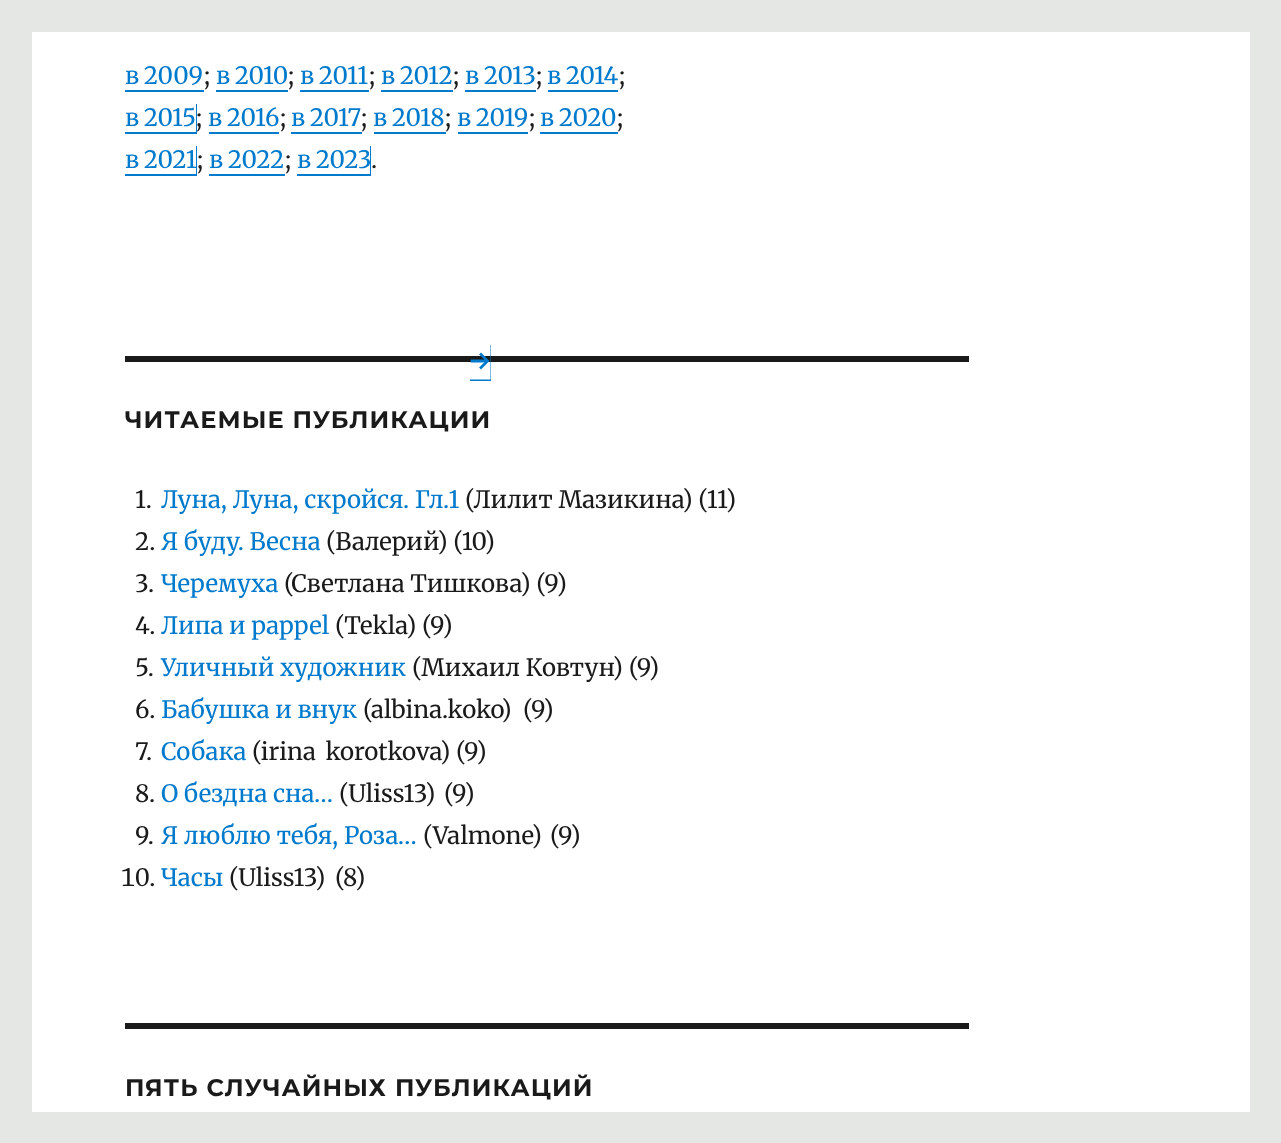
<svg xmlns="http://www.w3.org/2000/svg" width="1281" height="1143">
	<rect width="100%" height="100%" fill="#E4E7E3" />
	<rect x="32" y="32" width="1218" height="1080" fill="#FFFFFF" />
	<text x="125" y="84" word-spacing="-1" font-family="Merriweather" font-size="24" fill="#007ACC">в 2009</text>
	<rect x="125" y="90" width="79" height="2" fill="#007ACC" />
	<text x="204" y="84" font-family="Merriweather" font-size="24" fill="#1A1A1A">;</text>
	<text x="216" y="84" word-spacing="-1" font-family="Merriweather" font-size="24" fill="#007ACC">в 2010</text>
	<rect x="216" y="90" width="72" height="2" fill="#007ACC" />
	<text x="288" y="84" font-family="Merriweather" font-size="24" fill="#1A1A1A">;</text>
	<text x="300" y="84" word-spacing="-1" font-family="Merriweather" font-size="24" fill="#007ACC">в 2011</text>
	<rect x="300" y="90" width="69" height="2" fill="#007ACC" />
	<text x="369" y="84" font-family="Merriweather" font-size="24" fill="#1A1A1A">;</text>
	<text x="381" y="84" word-spacing="-1" font-family="Merriweather" font-size="24" fill="#007ACC">в 2012</text>
	<rect x="381" y="90" width="72" height="2" fill="#007ACC" />
	<text x="453" y="84" font-family="Merriweather" font-size="24" fill="#1A1A1A">;</text>
	<text x="465" y="84" word-spacing="-1" font-family="Merriweather" font-size="24" fill="#007ACC">в 2013</text>
	<path d="M465 90V92H536V62V90Z" fill="#007ACC" />
	<text x="536" y="84" font-family="Merriweather" font-size="24" fill="#1A1A1A">;</text>
	<text x="547" y="84" word-spacing="-1" font-family="Merriweather" font-size="24" fill="#007ACC">в 2014</text>
	<rect x="548" y="90" width="70" height="2" fill="#007ACC" />
	<text x="619" y="84" font-family="Merriweather" font-size="24" fill="#1A1A1A">;</text>
	<path d="M125 132V134H197V104H196V132Z" fill="#007ACC" />
	<text x="125" y="126" word-spacing="-1" font-family="Merriweather" font-size="24" fill="#007ACC">в 2015</text>
	<text x="196" y="126" font-family="Merriweather" font-size="24" fill="#1A1A1A">;</text>
	<text x="208" y="126" word-spacing="-1" font-family="Merriweather" font-size="24" fill="#007ACC">в 2016</text>
	<rect x="209" y="132" width="70" height="2" fill="#007ACC" />
	<text x="280" y="126" font-family="Merriweather" font-size="24" fill="#1A1A1A">;</text>
	<text x="291" y="126" word-spacing="-1" font-family="Merriweather" font-size="24" fill="#007ACC">в 2017</text>
	<path d="M291 132V134H362V104V132Z" fill="#007ACC" />
	<text x="361" y="126" font-family="Merriweather" font-size="24" fill="#1A1A1A">;</text>
	<text x="373" y="126" word-spacing="-1" font-family="Merriweather" font-size="24" fill="#007ACC">в 2018</text>
	<path d="M374 132V134H446V104V132Z" fill="#007ACC" />
	<text x="445" y="126" font-family="Merriweather" font-size="24" fill="#1A1A1A">;</text>
	<text x="457" y="126" word-spacing="-1" font-family="Merriweather" font-size="24" fill="#007ACC">в 2019</text>
	<rect x="458" y="132" width="70" height="2" fill="#007ACC" />
	<text x="529" y="126" font-family="Merriweather" font-size="24" fill="#1A1A1A">;</text>
	<text x="540" y="126" word-spacing="-1" font-family="Merriweather" font-size="24" fill="#007ACC">в 2020</text>
	<rect x="540" y="132" width="78" height="2" fill="#007ACC" />
	<text x="617" y="126" font-family="Merriweather" font-size="24" fill="#1A1A1A">;</text>
	<path d="M125 174V176H197V146H196V174Z" fill="#007ACC" />
	<text x="125" y="168" word-spacing="-1" font-family="Merriweather" font-size="24" fill="#007ACC">в 2021</text>
	<text x="197" y="168" font-family="Merriweather" font-size="24" fill="#1A1A1A">;</text>
	<text x="209" y="168" word-spacing="-1" font-family="Merriweather" font-size="24" fill="#007ACC">в 2022</text>
	<rect x="209" y="174" width="76" height="2" fill="#007ACC" />
	<text x="285" y="168" font-family="Merriweather" font-size="24" fill="#1A1A1A">;</text>
	<path d="M297 174V176H371V146H370V174Z" fill="#007ACC" />
	<text x="297" y="168" word-spacing="-1" font-family="Merriweather" font-size="24" fill="#007ACC">в 2023</text>
	<text x="371" y="168" font-family="Merriweather" font-size="24" fill="#1A1A1A">.</text>
	<rect x="125" y="356" width="844" height="6" fill="#1A1A1A" />
	<path d="M470 379.5V381H491V345H490.5V379.5Z" fill="#007ACC" />
	<text x="470" y="372" font-family="Merriweather" font-size="29" font-weight="700" fill="#007ACC">→</text>
	<text x="125" y="428" font-family="Montserrat" font-size="24" font-weight="700" letter-spacing="1.1" fill="#1A1A1A">ЧИТАЕМЫЕ ПУБЛИКАЦИИ</text>
	<text x="135" y="508" font-family="Merriweather" font-size="24" fill="#1A1A1A">1.</text>
	<text x="161" y="508" font-family="Merriweather" font-size="24" fill="#007ACC">Луна, Луна, скройся. Гл.1</text>
	<g font-family="Merriweather" font-size="24" fill="#1A1A1A">
		<text x="465" y="508">(Лилит Мазикина) (11)</text>
		<text x="135" y="550">2.</text>
	</g>
	<text x="161" y="550" font-family="Merriweather" font-size="24" fill="#007ACC">Я буду. Весна</text>
	<g font-family="Merriweather" font-size="24" fill="#1A1A1A">
		<text x="326" y="550">(Валерий) (10)</text>
		<text x="135" y="592">3.</text>
	</g>
	<text x="161" y="592" font-family="Merriweather" font-size="24" fill="#007ACC">Черемуха</text>
	<g font-family="Merriweather" font-size="24" fill="#1A1A1A">
		<text x="284" y="592">(Светлана Тишкова) (9)</text>
		<text x="135" y="634">4.</text>
	</g>
	<text x="161" y="634" font-family="Merriweather" font-size="24" fill="#007ACC">Липа и pappel</text>
	<g font-family="Merriweather" font-size="24" fill="#1A1A1A">
		<text x="335" y="634">(Tekla) (9)</text>
		<text x="135" y="676">5.</text>
	</g>
	<text x="161" y="676" font-family="Merriweather" font-size="24" fill="#007ACC">Уличный художник</text>
	<g font-family="Merriweather" font-size="24" fill="#1A1A1A">
		<text x="412" y="676">(Михаил Ковтун) (9)</text>
		<text x="135" y="718">6.</text>
	</g>
	<text x="161" y="718" font-family="Merriweather" font-size="24" fill="#007ACC">Бабушка и внук</text>
	<g font-family="Merriweather" font-size="24" fill="#1A1A1A">
		<text x="363" y="718">(albina.koko)</text>
		<text x="523" y="718">(9)</text>
		<text x="135" y="760">7.</text>
	</g>
	<text x="161" y="760" font-family="Merriweather" font-size="24" fill="#007ACC">Собака</text>
	<g font-family="Merriweather" font-size="24" fill="#1A1A1A">
		<text x="252" y="760" word-spacing="4">(irina korotkova)</text>
		<text x="456" y="760">(9)</text>
		<text x="135" y="802">8.</text>
	</g>
	<text x="161" y="802" font-family="Merriweather" font-size="24" fill="#007ACC">О бездна сна…</text>
	<g font-family="Merriweather" font-size="24" fill="#1A1A1A">
		<text x="339" y="802">(Uliss13)</text>
		<text x="444" y="802">(9)</text>
		<text x="135" y="844">9.</text>
	</g>
	<text x="161" y="844" font-family="Merriweather" font-size="24" fill="#007ACC">Я люблю тебя, Роза…</text>
	<g font-family="Merriweather" font-size="24" fill="#1A1A1A">
		<text x="423" y="844">(Valmone)</text>
		<text x="550" y="844">(9)</text>
	</g>
	<text x="121" y="886" font-family="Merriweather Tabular" font-size="24" fill="#1A1A1A">10.</text>
	<text x="161" y="886" font-family="Merriweather" font-size="24" fill="#007ACC">Часы</text>
	<g font-family="Merriweather" font-size="24" fill="#1A1A1A">
		<text x="229" y="886">(Uliss13)</text>
		<text x="335" y="886">(8)</text>
	</g>
	<rect x="125" y="1023" width="844" height="6" fill="#1A1A1A" />
	<text x="125" y="1096" font-family="Montserrat" font-size="24" font-weight="700" letter-spacing="1.1" fill="#1A1A1A">ПЯТЬ СЛУЧАЙНЫХ ПУБЛИКАЦИЙ</text>
</svg>
